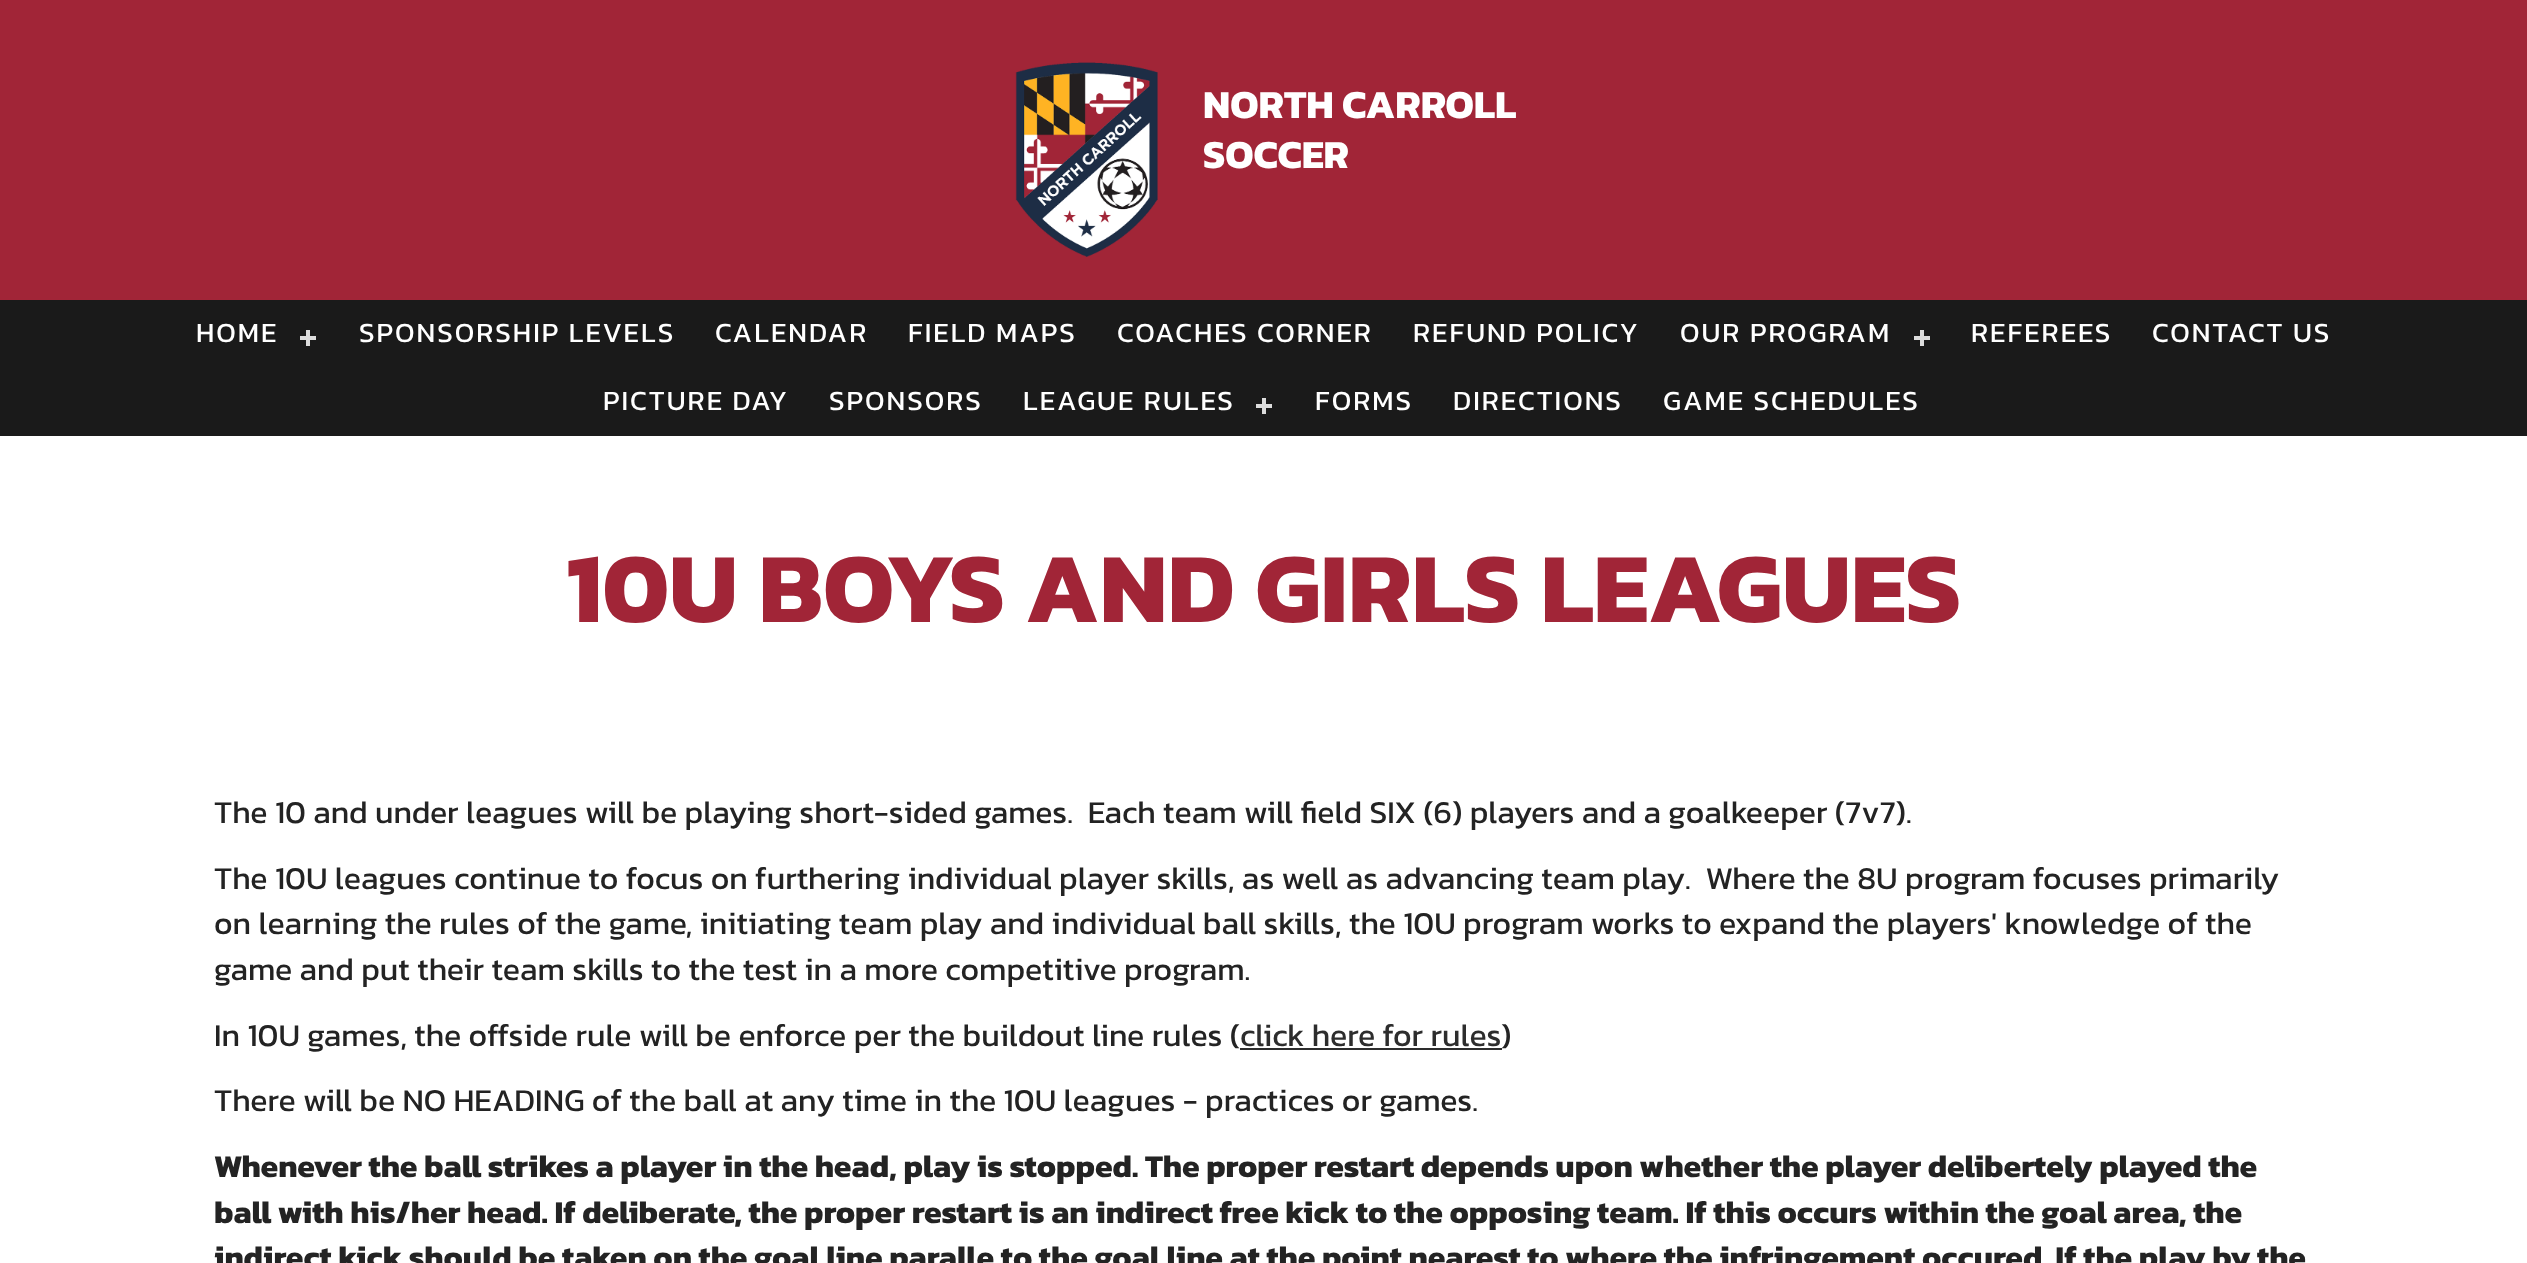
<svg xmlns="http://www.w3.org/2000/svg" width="2527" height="1263">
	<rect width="100%" height="100%" fill="#A12537" />
	<image x="1015" y="62" width="143" height="195" href="assets/img1.png" />
	<g font-family="Kanit" font-size="40" font-weight="700" fill="#FFFFFF">
		<text x="1203" y="118">NORTH CARROLL</text>
		<text x="1203" y="168">SOCCER</text>
	</g>
	<rect x="0" y="300" width="2527" height="136" fill="#1A1A1A" />
	<text x="196" y="342" font-family="Kanit" font-size="28" letter-spacing="2" fill="#FFFFFF">HOME</text>
	<rect x="306" y="330" width="4" height="16" fill="#DDDDDD" />
	<rect x="300" y="336" width="16" height="4" fill="#DDDDDD" />
	<g font-family="Kanit" font-size="28" letter-spacing="2" fill="#FFFFFF">
		<text x="359" y="342">SPONSORSHIP LEVELS</text>
		<text x="715" y="342">CALENDAR</text>
		<text x="908" y="342">FIELD MAPS</text>
		<text x="1117" y="342">COACHES CORNER</text>
		<text x="1413" y="342">REFUND POLICY</text>
		<text x="1680" y="342">OUR PROGRAM</text>
	</g>
	<rect x="1920" y="330" width="4" height="16" fill="#DDDDDD" />
	<rect x="1914" y="336" width="16" height="4" fill="#DDDDDD" />
	<g font-family="Kanit" font-size="28" letter-spacing="2" fill="#FFFFFF">
		<text x="1971" y="342">REFEREES</text>
		<text x="2152" y="342">CONTACT US</text>
		<text x="603" y="410">PICTURE DAY</text>
		<text x="829" y="410">SPONSORS</text>
		<text x="1023" y="410">LEAGUE RULES</text>
	</g>
	<rect x="1262" y="398" width="4" height="16" fill="#DDDDDD" />
	<rect x="1256" y="404" width="16" height="4" fill="#DDDDDD" />
	<g font-family="Kanit" font-size="28" letter-spacing="2" fill="#FFFFFF">
		<text x="1315" y="410">FORMS</text>
		<text x="1453" y="410">DIRECTIONS</text>
		<text x="1663" y="410">GAME SCHEDULES</text>
	</g>
	<rect x="0" y="436" width="2527" height="827" fill="#FFFFFF" />
	<text x="566" y="622" font-family="Kanit" font-size="100" font-weight="700" fill="#A12537">10U BOYS AND GIRLS LEAGUES</text>
	<g font-family="Kanit" font-size="32" fill="#232323">
		<text x="214" y="823" xml:space="preserve">The 10 and under leagues will be playing short-sided games.  Each team will field SIX (6) players and a goalkeeper (7v7).</text>
		<text x="214" y="889" xml:space="preserve">The 10U leagues continue to focus on furthering individual player skills, as well as advancing team play.  Where the 8U program focuses primarily</text>
		<text x="214" y="934">on learning the rules of the game, initiating team play and individual ball skills, the 10U program works to expand the players' knowledge of the</text>
		<text x="214" y="980">game and put their team skills to the test in a more competitive program.</text>
		<text x="214" y="1046">In 10U games, the offside rule will be enforce per the buildout line rules (</text>
	</g>
	<text x="1240" y="1046" font-family="Kanit" font-size="32" fill="#2D2D2D">click here for rules</text>
	<rect x="1240" y="1048" width="262" height="2" fill="#2D2D2D" />
	<g font-family="Kanit" font-size="32" fill="#232323">
		<text x="1501" y="1046">)</text>
		<text x="214" y="1111">There will be NO HEADING of the ball at any time in the 10U leagues - practices or games.</text>
	</g>
	<g font-family="Kanit" font-size="32" font-weight="700" fill="#232323">
		<text x="214" y="1177">Whenever the ball strikes a player in the head, play is stopped. The proper restart depends upon whether the player delibertely played the</text>
		<text x="214" y="1223">ball with his/her head. If deliberate, the proper restart is an indirect free kick to the opposing team. If this occurs within the goal area, the</text>
		<text x="214" y="1268">indirect kick should be taken on the goal line paralle to the goal line at the point nearest to where the infringement occured. If the play by the</text>
	</g>
</svg>
